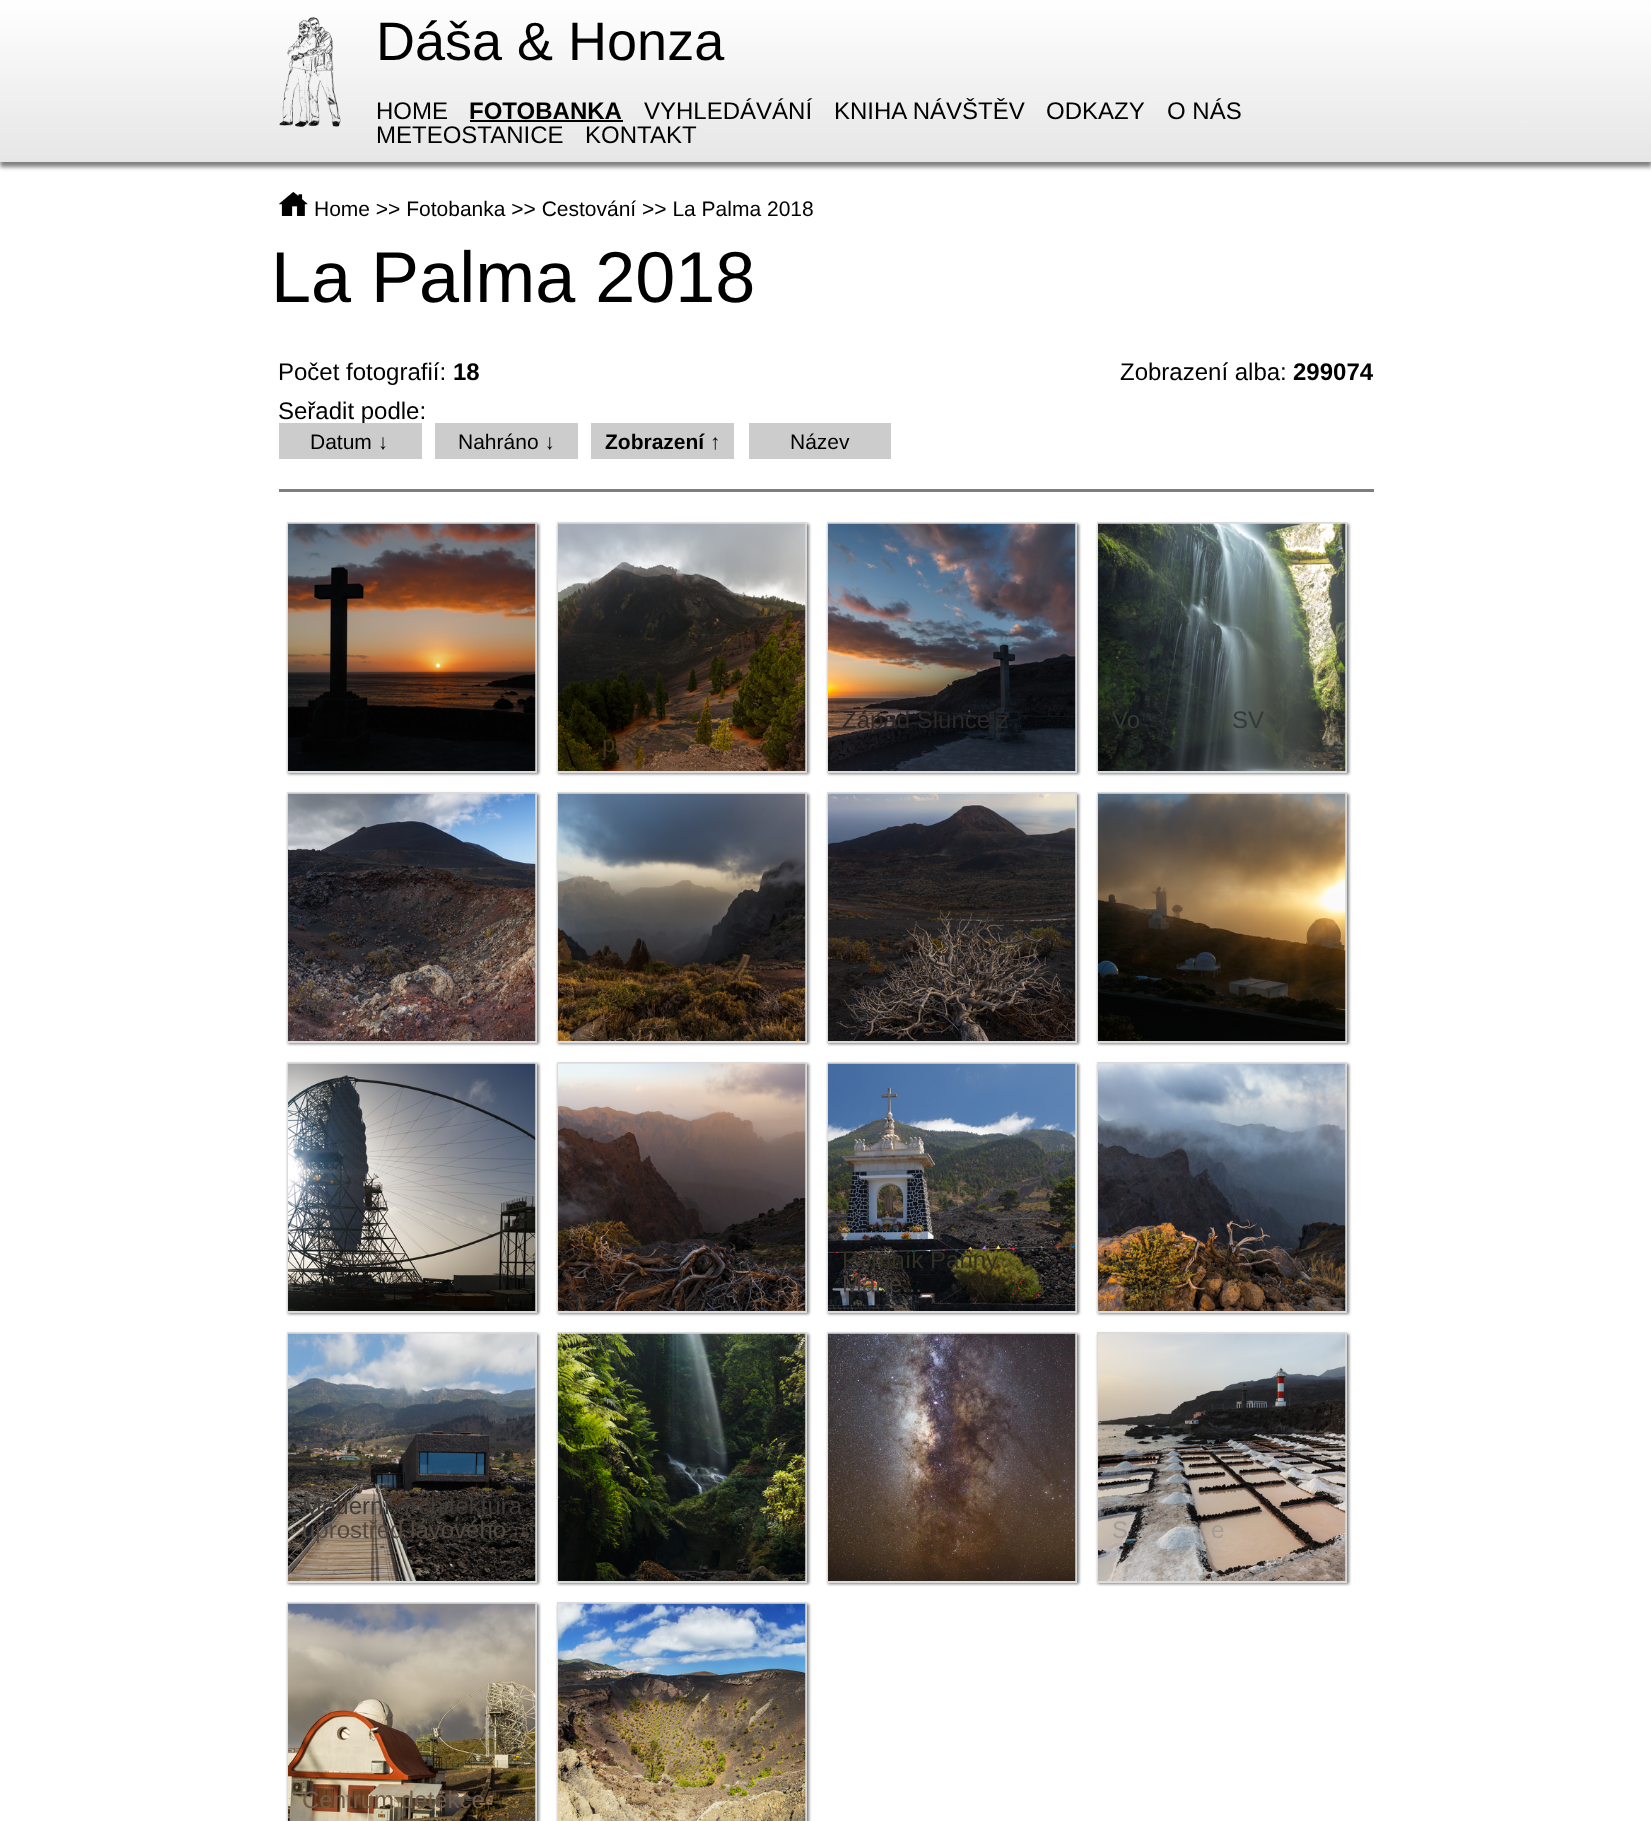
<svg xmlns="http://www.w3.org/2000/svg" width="1651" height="1821">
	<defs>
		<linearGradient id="g1" gradientUnits="userSpaceOnUse" x1="826" y1="0" x2="826" y2="162"><stop offset="0" stop-color="#FFFFFF" /><stop offset="1" stop-color="#E6E6E6" /></linearGradient>
	</defs>
	<rect width="100%" height="100%" fill="#FFFFFF" />
	<rect x="0" y="5" width="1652" height="162" fill="#808080" filter="blur(2px)" />
	<rect x="0" y="1" width="1651" height="161" fill="url(#g1)" />
	<image x="279" y="17" width="62" height="110" href="assets/img1.png" />
	<text x="376" y="60" font-family="Liberation Sans" font-size="54" fill="#000000">Dáša &amp; Honza</text>
	<text x="376" y="119" font-family="Liberation Sans" font-size="24" fill="#000000">HOME</text>
	<text x="469" y="119" font-family="Liberation Sans" font-size="24" font-weight="700" fill="#000000">FOTOBANKA</text>
	<rect x="470" y="120" width="153" height="2" fill="#000000" />
	<g font-family="Liberation Sans" font-size="24" fill="#000000">
		<text x="644" y="119">VYHLEDÁVÁNÍ</text>
		<text x="834" y="119">KNIHA NÁVŠTĚV</text>
		<text x="1046" y="119">ODKAZY</text>
		<text x="1167" y="119">O NÁS</text>
		<text x="376" y="143">METEOSTANICE</text>
		<text x="585" y="143">KONTAKT</text>
	</g>
	<image x="279" y="192" width="29" height="24" href="assets/img2.png" />
	<text x="314" y="216" font-family="Liberation Sans" font-size="21" fill="#000000">Home &gt;&gt; Fotobanka &gt;&gt; Cestování &gt;&gt; La Palma 2018</text>
	<text x="271" y="302" font-family="Liberation Sans" font-size="72" fill="#000000">La Palma 2018</text>
	<text x="278" y="380" font-family="Liberation Sans" font-size="24" fill="#000000">Počet fotografií:</text>
	<text x="453" y="380" font-family="Liberation Sans" font-size="24" font-weight="700" fill="#000000">18</text>
	<text x="1120" y="380" font-family="Liberation Sans" font-size="24" fill="#000000">Zobrazení alba:</text>
	<text x="1293" y="380" font-family="Liberation Sans" font-size="24" font-weight="700" fill="#000000">299074</text>
	<text x="278" y="419" font-family="Liberation Sans" font-size="24" fill="#000000">Seřadit podle:</text>
	<rect x="279" y="423" width="143" height="36" fill="#CCCCCC" />
	<text x="310" y="449" font-family="Liberation Sans" font-size="21" fill="#000000">Datum ↓</text>
	<rect x="435" y="423" width="143" height="36" fill="#CCCCCC" />
	<text x="458" y="449" font-family="Liberation Sans" font-size="21" fill="#000000">Nahráno ↓</text>
	<rect x="591" y="423" width="143" height="36" fill="#CCCCCC" />
	<text x="605" y="449" font-family="Liberation Sans" font-size="21" font-weight="700" fill="#000000">Zobrazení ↑</text>
	<rect x="749" y="423" width="142" height="36" fill="#CCCCCC" />
	<text x="790" y="449" font-family="Liberation Sans" font-size="21" fill="#000000">Název</text>
	<rect x="279" y="489" width="1095" height="3" fill="#7E7E7E" />
	<rect x="288" y="524" width="251" height="250" fill="#808080" filter="blur(1.5px)" />
	<rect x="288" y="523" width="248" height="249" fill="none" stroke="#DBDBDB" stroke-width="2" />
	<image x="288" y="523" width="248" height="248" href="assets/img3.png" />
	<rect x="828" y="524" width="251" height="250" fill="#808080" filter="blur(1.5px)" />
	<rect x="828" y="523" width="248" height="249" fill="none" stroke="#DBDBDB" stroke-width="2" />
	<image x="828" y="523" width="248" height="248" href="assets/img4.png" />
	<text x="842" y="728" font-family="Liberation Sans" font-size="24" fill="#2E2826">Západ Slunce z</text>
	<rect x="1098" y="524" width="251" height="250" fill="#808080" filter="blur(1.5px)" />
	<rect x="1098" y="523" width="248" height="249" fill="none" stroke="#DBDBDB" stroke-width="2" />
	<image x="1098" y="523" width="248" height="248" href="assets/img5.png" />
	<g font-family="Liberation Sans" font-size="24" fill="#333A38">
		<text x="1112" y="728">Vo</text>
		<text x="1232" y="728">SV</text>
	</g>
	<rect x="558" y="524" width="251" height="250" fill="#808080" filter="blur(1.5px)" />
	<rect x="558" y="523" width="248" height="249" fill="none" stroke="#DBDBDB" stroke-width="2" />
	<image x="558" y="523" width="248" height="248" href="assets/img6.png" />
	<text x="602" y="752" font-family="Liberation Sans" font-size="24" fill="#453219">p</text>
	<rect x="288" y="794" width="251" height="250" fill="#808080" filter="blur(1.5px)" />
	<rect x="288" y="793" width="248" height="249" fill="none" stroke="#DBDBDB" stroke-width="2" />
	<image x="288" y="793" width="248" height="248" href="assets/img7.png" />
	<rect x="558" y="794" width="251" height="250" fill="#808080" filter="blur(1.5px)" />
	<rect x="558" y="793" width="248" height="249" fill="none" stroke="#DBDBDB" stroke-width="2" />
	<image x="558" y="793" width="248" height="248" href="assets/img8.png" />
	<rect x="828" y="794" width="251" height="250" fill="#808080" filter="blur(1.5px)" />
	<rect x="828" y="793" width="248" height="249" fill="none" stroke="#DBDBDB" stroke-width="2" />
	<image x="828" y="793" width="248" height="248" href="assets/img9.png" />
	<rect x="1098" y="794" width="251" height="250" fill="#808080" filter="blur(1.5px)" />
	<rect x="1098" y="793" width="248" height="249" fill="none" stroke="#DBDBDB" stroke-width="2" />
	<image x="1098" y="793" width="248" height="248" href="assets/img10.png" />
	<rect x="288" y="1064" width="251" height="250" fill="#808080" filter="blur(1.5px)" />
	<rect x="288" y="1063" width="248" height="249" fill="none" stroke="#DBDBDB" stroke-width="2" />
	<image x="288" y="1063" width="248" height="248" href="assets/img11.png" />
	<rect x="558" y="1064" width="251" height="250" fill="#808080" filter="blur(1.5px)" />
	<rect x="558" y="1063" width="248" height="249" fill="none" stroke="#DBDBDB" stroke-width="2" />
	<image x="558" y="1063" width="248" height="248" href="assets/img12.png" />
	<rect x="828" y="1064" width="251" height="250" fill="#808080" filter="blur(1.5px)" />
	<rect x="828" y="1063" width="248" height="249" fill="none" stroke="#DBDBDB" stroke-width="2" />
	<image x="828" y="1063" width="248" height="248" href="assets/img13.png" />
	<text x="842" y="1268" font-family="Liberation Sans" font-size="24" fill="#312F20">Pomník Panny</text>
	<text x="842" y="1292" font-family="Liberation Sans" font-size="24" fill="#413B37">Marie...</text>
	<rect x="1098" y="1064" width="251" height="250" fill="#808080" filter="blur(1.5px)" />
	<rect x="1098" y="1063" width="248" height="249" fill="none" stroke="#DBDBDB" stroke-width="2" />
	<image x="1098" y="1063" width="248" height="248" href="assets/img14.png" />
	<rect x="288" y="1334" width="251" height="250" fill="#808080" filter="blur(1.5px)" />
	<rect x="288" y="1333" width="248" height="249" fill="none" stroke="#DBDBDB" stroke-width="2" />
	<image x="288" y="1333" width="248" height="248" href="assets/img15.png" />
	<text x="302" y="1514" font-family="Liberation Sans" font-size="24" fill="#413B37">Moderní architektura</text>
	<text x="302" y="1538" font-family="Liberation Sans" font-size="24" fill="#514840">uprostřed lávového</text>
	<rect x="558" y="1334" width="251" height="250" fill="#808080" filter="blur(1.5px)" />
	<rect x="558" y="1333" width="248" height="249" fill="none" stroke="#DBDBDB" stroke-width="2" />
	<image x="558" y="1333" width="248" height="248" href="assets/img16.png" />
	<rect x="828" y="1334" width="251" height="250" fill="#808080" filter="blur(1.5px)" />
	<rect x="828" y="1333" width="248" height="249" fill="none" stroke="#DBDBDB" stroke-width="2" />
	<image x="828" y="1333" width="248" height="248" href="assets/img17.png" />
	<rect x="1098" y="1334" width="251" height="250" fill="#808080" filter="blur(1.5px)" />
	<rect x="1098" y="1333" width="248" height="249" fill="none" stroke="#DBDBDB" stroke-width="2" />
	<image x="1098" y="1333" width="248" height="248" href="assets/img18.png" />
	<g font-family="Liberation Sans" font-size="24" fill="#A39C96">
		<text x="1112" y="1538">S</text>
		<text x="1211" y="1538">e</text>
	</g>
	<rect x="288" y="1604" width="251" height="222" fill="#808080" filter="blur(1.5px)" />
	<rect x="288" y="1603" width="248" height="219" fill="none" stroke="#DBDBDB" stroke-width="2" />
	<image x="288" y="1603" width="248" height="218" href="assets/img19.png" />
	<text x="302" y="1808" font-family="Liberation Sans" font-size="24" fill="#735C47">Centrum detekce</text>
	<rect x="558" y="1604" width="251" height="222" fill="#808080" filter="blur(1.5px)" />
	<rect x="558" y="1603" width="248" height="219" fill="none" stroke="#DBDBDB" stroke-width="2" />
	<image x="558" y="1603" width="248" height="218" href="assets/img20.png" />
</svg>
